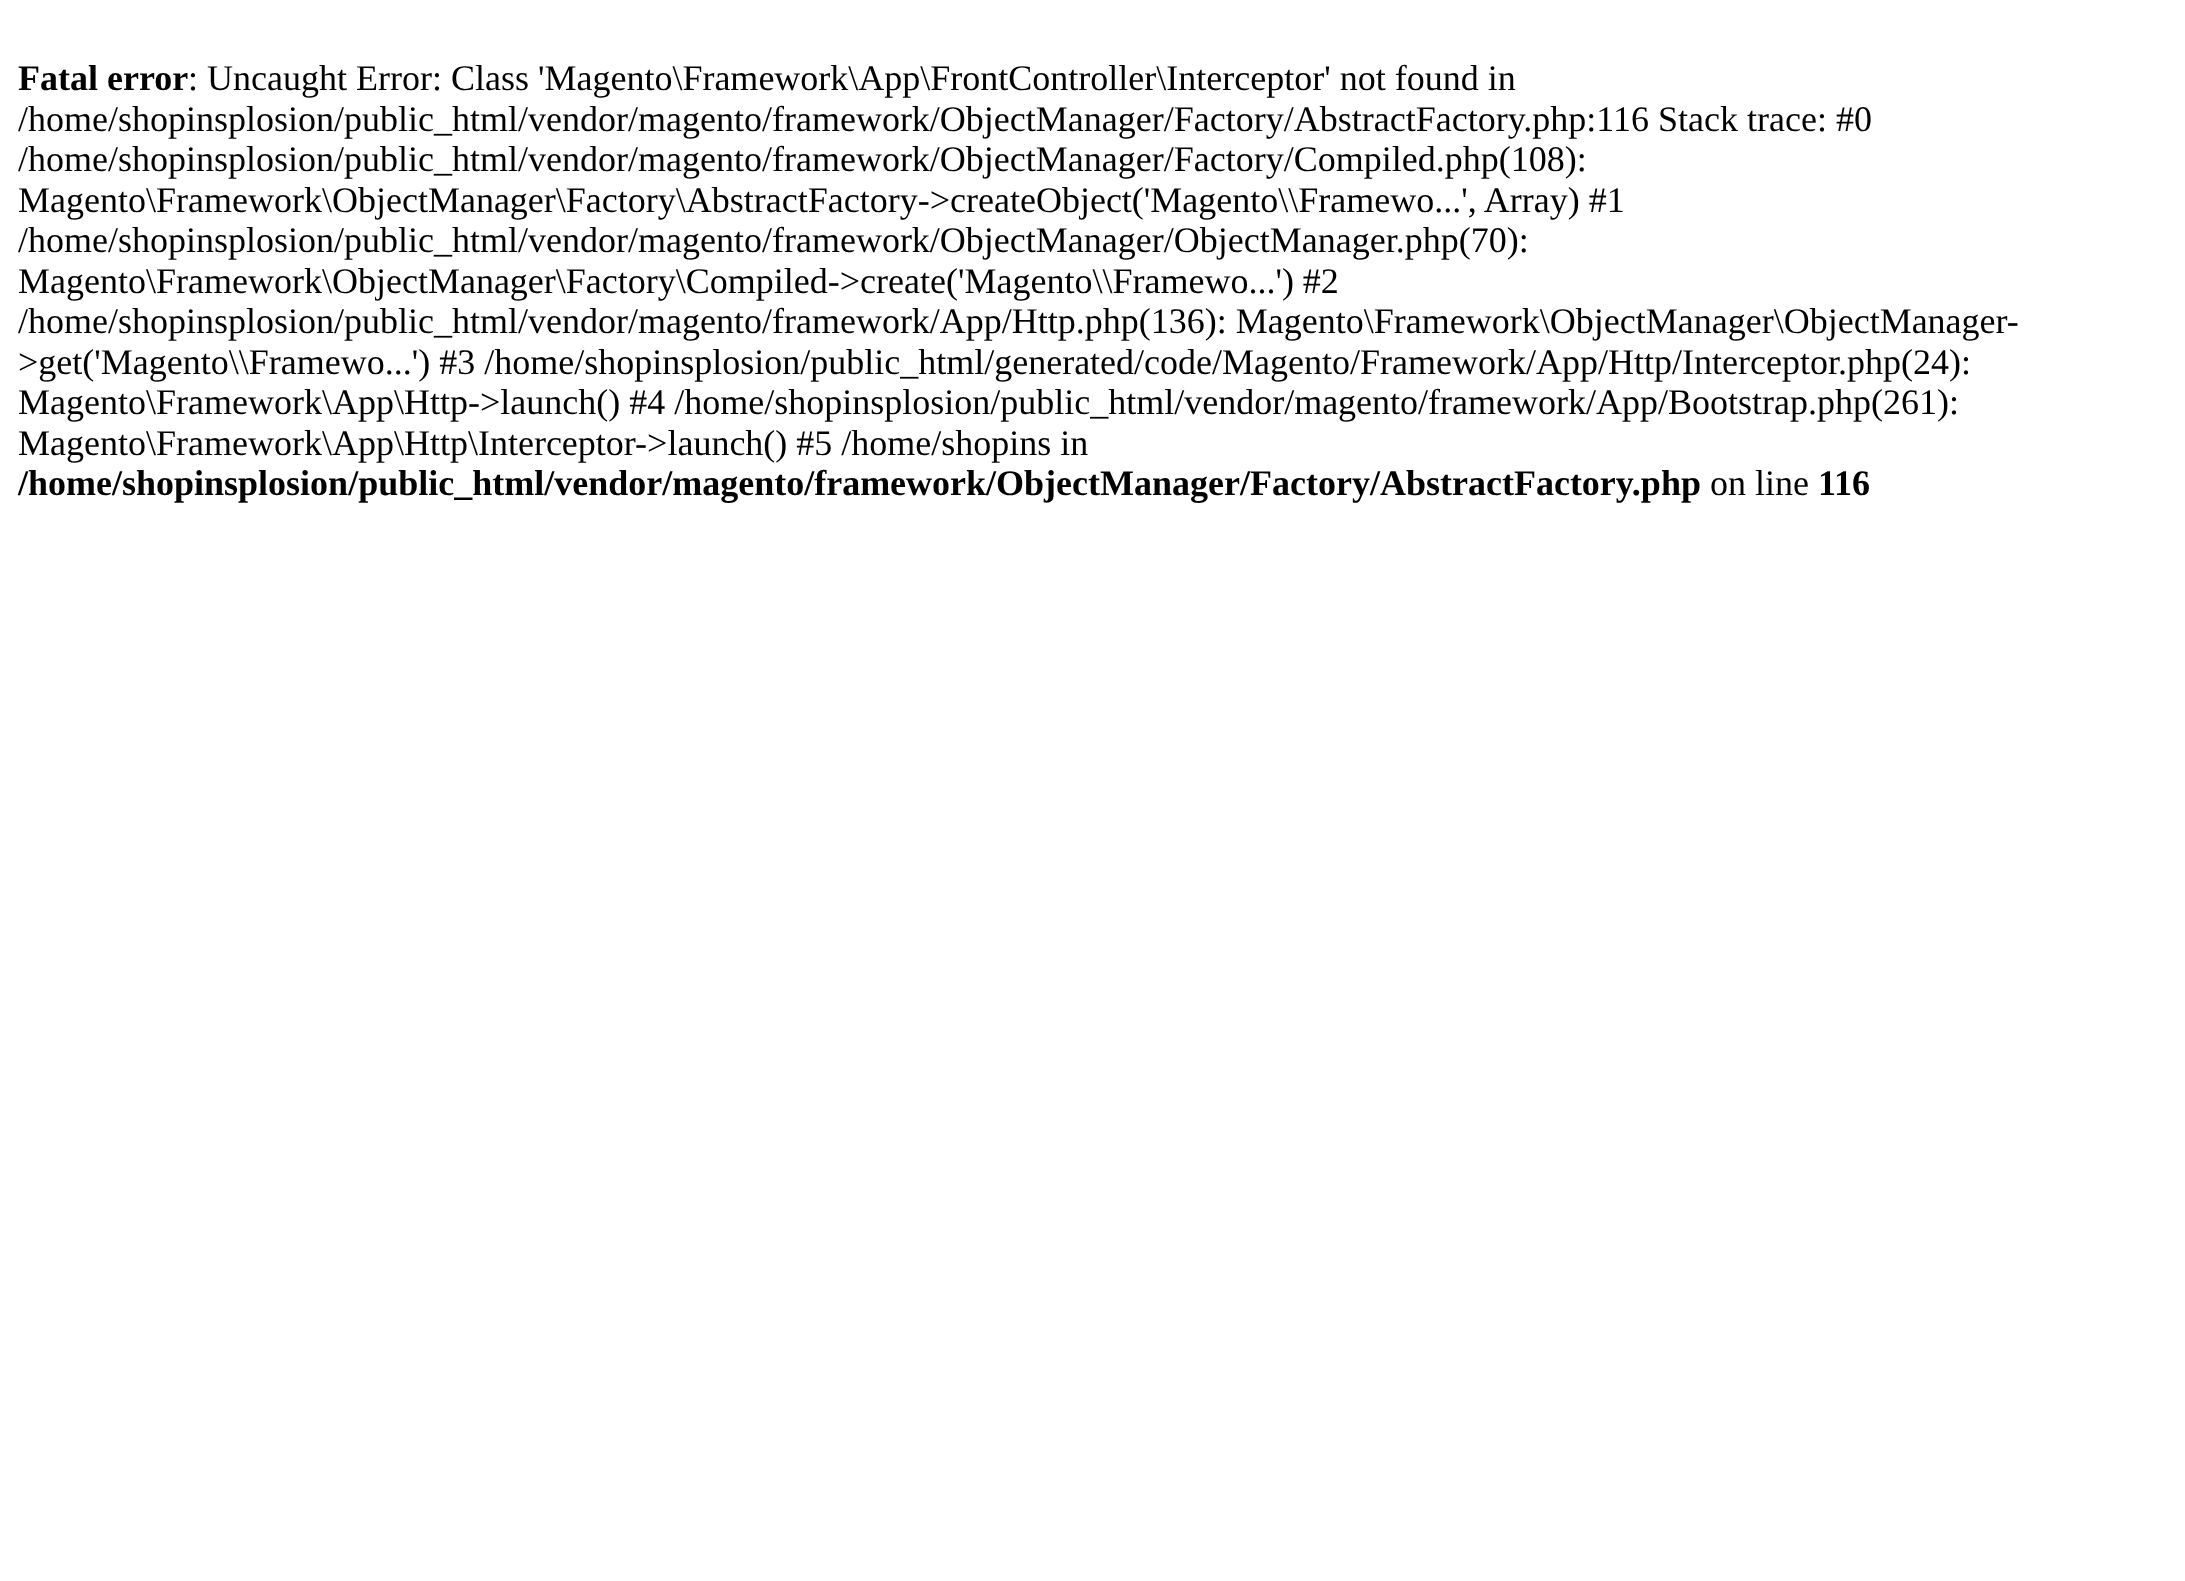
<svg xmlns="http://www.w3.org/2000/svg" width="2185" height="1581">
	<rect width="100%" height="100%" fill="#FFFFFF" />
	<text x="18" y="90" font-family="Liberation Serif" font-size="36" font-weight="700" fill="#000000">Fatal error</text>
	<g font-family="Liberation Serif" font-size="36" fill="#000000">
		<text x="188" y="90">: Uncaught Error: Class 'Magento\Framework\App\FrontController\Interceptor' not found in</text>
		<text x="18" y="131">/home/shopinsplosion/public_html/vendor/magento/framework/ObjectManager/Factory/AbstractFactory.php:116 Stack trace: #0</text>
		<text x="18" y="171">/home/shopinsplosion/public_html/vendor/magento/framework/ObjectManager/Factory/Compiled.php(108):</text>
		<text x="18" y="212">Magento\Framework\ObjectManager\Factory\AbstractFactory-&gt;createObject('Magento\\Framewo...', Array) #1</text>
		<text x="18" y="252">/home/shopinsplosion/public_html/vendor/magento/framework/ObjectManager/ObjectManager.php(70):</text>
		<text x="18" y="293">Magento\Framework\ObjectManager\Factory\Compiled-&gt;create('Magento\\Framewo...') #2</text>
		<text x="18" y="333">/home/shopinsplosion/public_html/vendor/magento/framework/App/Http.php(136): Magento\Framework\ObjectManager\ObjectManager-</text>
		<text x="18" y="374">&gt;get('Magento\\Framewo...') #3 /home/shopinsplosion/public_html/generated/code/Magento/Framework/App/Http/Interceptor.php(24):</text>
		<text x="18" y="414">Magento\Framework\App\Http-&gt;launch() #4 /home/shopinsplosion/public_html/vendor/magento/framework/App/Bootstrap.php(261):</text>
		<text x="18" y="455">Magento\Framework\App\Http\Interceptor-&gt;launch() #5 /home/shopins in</text>
	</g>
	<text x="18" y="495" font-family="Liberation Serif" font-size="36" font-weight="700" fill="#000000">/home/shopinsplosion/public_html/vendor/magento/framework/ObjectManager/Factory/AbstractFactory.php</text>
	<text x="1710" y="495" font-family="Liberation Serif" font-size="36" fill="#000000">on line</text>
	<text x="1818" y="495" font-family="Liberation Serif" font-size="36" font-weight="700" fill="#000000">116</text>
</svg>
